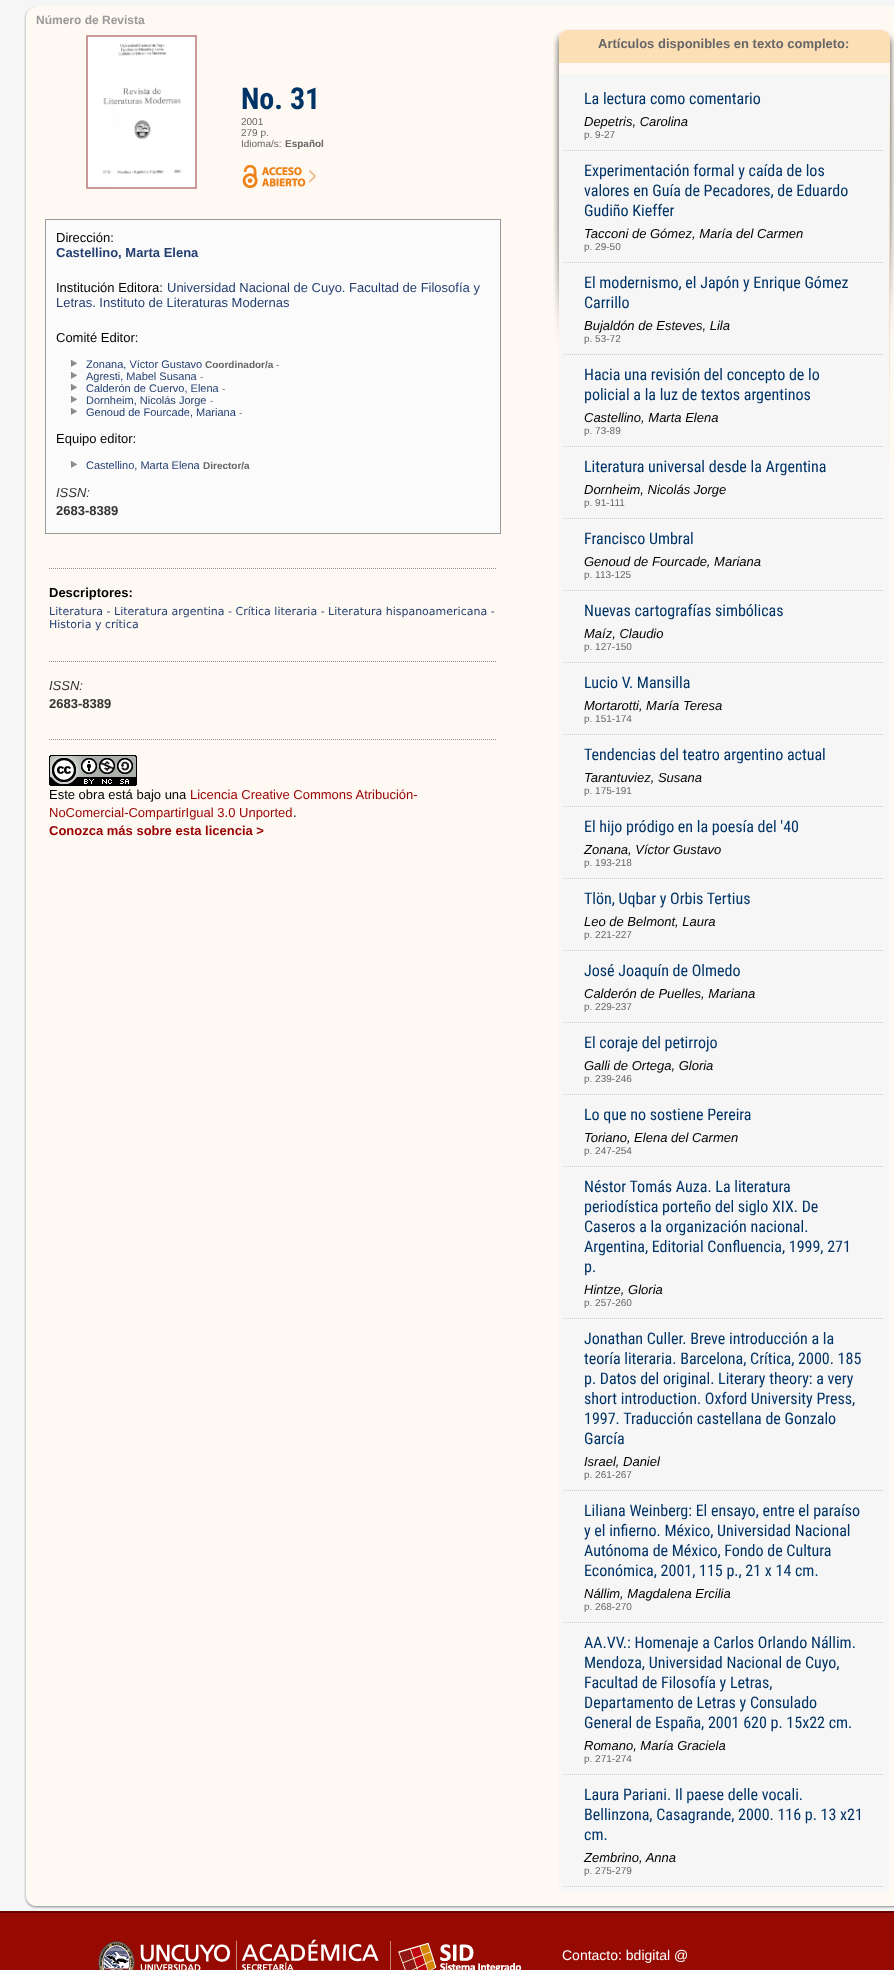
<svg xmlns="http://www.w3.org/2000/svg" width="894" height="1970">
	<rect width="100%" height="100%" fill="#F6F6F6" />
	<image x="24" y="6" width="12" height="21" href="assets/img1.png" />
	<rect x="36" y="6" width="858" height="1890" fill="#FEF9F2" />
	<text x="36" y="24" font-family="Liberation Sans" font-size="12" font-weight="700" fill="#999999">Número de Revista</text>
	<image x="24" y="27" width="12" height="1869" href="assets/img2.png" />
	<rect x="87" y="36" width="109" height="152" fill="none" stroke="#CC9999" stroke-width="2" />
	<image x="88" y="37" width="107" height="150" href="assets/img3.png" />
	<text x="241" y="109" font-family="Roboto Condensed" font-size="30" font-weight="700" fill="#003366">No. 31</text>
	<g font-family="Liberation Sans" font-size="10" fill="#666666">
		<text x="241" y="125">2001</text>
		<text x="241" y="136">279 p.</text>
		<text x="241" y="147">Idioma/s:</text>
	</g>
	<text x="285" y="147" font-family="Liberation Sans" font-size="10" font-weight="700" fill="#666666">Español</text>
	<image x="242" y="164" width="74" height="24" href="assets/img4.png" />
	<image x="553" y="29" width="341" height="429" href="assets/img5.png" />
	<text x="598" y="48" font-family="Liberation Sans" font-size="13" font-weight="700" fill="#666666">Artículos disponibles en texto completo:</text>
	<rect x="559" y="74" width="330" height="1818" fill="#F6F6F6" />
	<path d="M564 150.5H884" fill="none" stroke="#CCCCCC" stroke-dasharray="1 1" />
	<text x="584" y="104" font-family="Roboto Condensed" font-size="16" fill="#003366">La lectura como comentario</text>
	<text x="584" y="126" font-family="Liberation Sans" font-size="13" font-style="italic" fill="#000000">Depetris, Carolina</text>
	<text x="584" y="138" font-family="Liberation Sans" font-size="10" fill="#666666">p. 9-27</text>
	<path d="M564 262.5H884" fill="none" stroke="#CCCCCC" stroke-dasharray="1 1" />
	<g font-family="Roboto Condensed" font-size="16" fill="#003366">
		<text x="584" y="176">Experimentación formal y caída de los</text>
		<text x="584" y="196">valores en Guía de Pecadores, de Eduardo</text>
		<text x="584" y="216">Gudiño Kieffer</text>
	</g>
	<text x="584" y="238" font-family="Liberation Sans" font-size="13" font-style="italic" fill="#000000">Tacconi de Gómez, María del Carmen</text>
	<text x="584" y="250" font-family="Liberation Sans" font-size="10" fill="#666666">p. 29-50</text>
	<path d="M564 354.5H884" fill="none" stroke="#CCCCCC" stroke-dasharray="1 1" />
	<g font-family="Roboto Condensed" font-size="16" fill="#003366">
		<text x="584" y="288">El modernismo, el Japón y Enrique Gómez</text>
		<text x="584" y="308">Carrillo</text>
	</g>
	<text x="584" y="330" font-family="Liberation Sans" font-size="13" font-style="italic" fill="#000000">Bujaldón de Esteves, Lila</text>
	<text x="584" y="342" font-family="Liberation Sans" font-size="10" fill="#666666">p. 53-72</text>
	<path d="M564 446.5H884" fill="none" stroke="#CCCCCC" stroke-dasharray="1 1" />
	<g font-family="Roboto Condensed" font-size="16" fill="#003366">
		<text x="584" y="380">Hacia una revisión del concepto de lo</text>
		<text x="584" y="400">policial a la luz de textos argentinos</text>
	</g>
	<text x="584" y="422" font-family="Liberation Sans" font-size="13" font-style="italic" fill="#000000">Castellino, Marta Elena</text>
	<text x="584" y="434" font-family="Liberation Sans" font-size="10" fill="#666666">p. 73-89</text>
	<path d="M564 518.5H884" fill="none" stroke="#CCCCCC" stroke-dasharray="1 1" />
	<text x="584" y="472" font-family="Roboto Condensed" font-size="16" fill="#003366">Literatura universal desde la Argentina</text>
	<text x="584" y="494" font-family="Liberation Sans" font-size="13" font-style="italic" fill="#000000">Dornheim, Nicolás Jorge</text>
	<text x="584" y="506" font-family="Liberation Sans" font-size="10" fill="#666666">p. 91-111</text>
	<path d="M564 590.5H884" fill="none" stroke="#CCCCCC" stroke-dasharray="1 1" />
	<text x="584" y="544" font-family="Roboto Condensed" font-size="16" fill="#003366">Francisco Umbral</text>
	<text x="584" y="566" font-family="Liberation Sans" font-size="13" font-style="italic" fill="#000000">Genoud de Fourcade, Mariana</text>
	<text x="584" y="578" font-family="Liberation Sans" font-size="10" fill="#666666">p. 113-125</text>
	<path d="M564 662.5H884" fill="none" stroke="#CCCCCC" stroke-dasharray="1 1" />
	<text x="584" y="616" font-family="Roboto Condensed" font-size="16" fill="#003366">Nuevas cartografías simbólicas</text>
	<text x="584" y="638" font-family="Liberation Sans" font-size="13" font-style="italic" fill="#000000">Maíz, Claudio</text>
	<text x="584" y="650" font-family="Liberation Sans" font-size="10" fill="#666666">p. 127-150</text>
	<path d="M564 734.5H884" fill="none" stroke="#CCCCCC" stroke-dasharray="1 1" />
	<text x="584" y="688" font-family="Roboto Condensed" font-size="16" fill="#003366">Lucio V. Mansilla</text>
	<text x="584" y="710" font-family="Liberation Sans" font-size="13" font-style="italic" fill="#000000">Mortarotti, María Teresa</text>
	<text x="584" y="722" font-family="Liberation Sans" font-size="10" fill="#666666">p. 151-174</text>
	<path d="M564 806.5H884" fill="none" stroke="#CCCCCC" stroke-dasharray="1 1" />
	<text x="584" y="760" font-family="Roboto Condensed" font-size="16" fill="#003366">Tendencias del teatro argentino actual</text>
	<text x="584" y="782" font-family="Liberation Sans" font-size="13" font-style="italic" fill="#000000">Tarantuviez, Susana</text>
	<text x="584" y="794" font-family="Liberation Sans" font-size="10" fill="#666666">p. 175-191</text>
	<path d="M564 878.5H884" fill="none" stroke="#CCCCCC" stroke-dasharray="1 1" />
	<text x="584" y="832" font-family="Roboto Condensed" font-size="16" fill="#003366">El hijo pródigo en la poesía del '40</text>
	<text x="584" y="854" font-family="Liberation Sans" font-size="13" font-style="italic" fill="#000000">Zonana, Víctor Gustavo</text>
	<text x="584" y="866" font-family="Liberation Sans" font-size="10" fill="#666666">p. 193-218</text>
	<path d="M564 950.5H884" fill="none" stroke="#CCCCCC" stroke-dasharray="1 1" />
	<text x="584" y="904" font-family="Roboto Condensed" font-size="16" fill="#003366">Tlön, Uqbar y Orbis Tertius</text>
	<text x="584" y="926" font-family="Liberation Sans" font-size="13" font-style="italic" fill="#000000">Leo de Belmont, Laura</text>
	<text x="584" y="938" font-family="Liberation Sans" font-size="10" fill="#666666">p. 221-227</text>
	<path d="M564 1022.5H884" fill="none" stroke="#CCCCCC" stroke-dasharray="1 1" />
	<text x="584" y="976" font-family="Roboto Condensed" font-size="16" fill="#003366">José Joaquín de Olmedo</text>
	<text x="584" y="998" font-family="Liberation Sans" font-size="13" font-style="italic" fill="#000000">Calderón de Puelles, Mariana</text>
	<text x="584" y="1010" font-family="Liberation Sans" font-size="10" fill="#666666">p. 229-237</text>
	<path d="M564 1094.5H884" fill="none" stroke="#CCCCCC" stroke-dasharray="1 1" />
	<text x="584" y="1048" font-family="Roboto Condensed" font-size="16" fill="#003366">El coraje del petirrojo</text>
	<text x="584" y="1070" font-family="Liberation Sans" font-size="13" font-style="italic" fill="#000000">Galli de Ortega, Gloria</text>
	<text x="584" y="1082" font-family="Liberation Sans" font-size="10" fill="#666666">p. 239-246</text>
	<path d="M564 1166.5H884" fill="none" stroke="#CCCCCC" stroke-dasharray="1 1" />
	<text x="584" y="1120" font-family="Roboto Condensed" font-size="16" fill="#003366">Lo que no sostiene Pereira</text>
	<text x="584" y="1142" font-family="Liberation Sans" font-size="13" font-style="italic" fill="#000000">Toriano, Elena del Carmen</text>
	<text x="584" y="1154" font-family="Liberation Sans" font-size="10" fill="#666666">p. 247-254</text>
	<path d="M564 1318.5H884" fill="none" stroke="#CCCCCC" stroke-dasharray="1 1" />
	<g font-family="Roboto Condensed" font-size="16" fill="#003366">
		<text x="584" y="1192">Néstor Tomás Auza. La literatura</text>
		<text x="584" y="1212">periodística porteño del siglo XIX. De</text>
		<text x="584" y="1232">Caseros a la organización nacional.</text>
		<text x="584" y="1252">Argentina, Editorial Confluencia, 1999, 271</text>
		<text x="584" y="1272">p.</text>
	</g>
	<text x="584" y="1294" font-family="Liberation Sans" font-size="13" font-style="italic" fill="#000000">Hintze, Gloria</text>
	<text x="584" y="1306" font-family="Liberation Sans" font-size="10" fill="#666666">p. 257-260</text>
	<path d="M564 1490.5H884" fill="none" stroke="#CCCCCC" stroke-dasharray="1 1" />
	<g font-family="Roboto Condensed" font-size="16" fill="#003366">
		<text x="584" y="1344">Jonathan Culler. Breve introducción a la</text>
		<text x="584" y="1364">teoría literaria. Barcelona, Crítica, 2000. 185</text>
		<text x="584" y="1384">p. Datos del original. Literary theory: a very</text>
		<text x="584" y="1404">short introduction. Oxford University Press,</text>
		<text x="584" y="1424">1997. Traducción castellana de Gonzalo</text>
		<text x="584" y="1444">García</text>
	</g>
	<text x="584" y="1466" font-family="Liberation Sans" font-size="13" font-style="italic" fill="#000000">Israel, Daniel</text>
	<text x="584" y="1478" font-family="Liberation Sans" font-size="10" fill="#666666">p. 261-267</text>
	<path d="M564 1622.5H884" fill="none" stroke="#CCCCCC" stroke-dasharray="1 1" />
	<g font-family="Roboto Condensed" font-size="16" fill="#003366">
		<text x="584" y="1516">Liliana Weinberg: El ensayo, entre el paraíso</text>
		<text x="584" y="1536">y el infierno. México, Universidad Nacional</text>
		<text x="584" y="1556">Autónoma de México, Fondo de Cultura</text>
		<text x="584" y="1576">Económica, 2001, 115 p., 21 x 14 cm.</text>
	</g>
	<text x="584" y="1598" font-family="Liberation Sans" font-size="13" font-style="italic" fill="#000000">Nállim, Magdalena Ercilia</text>
	<text x="584" y="1610" font-family="Liberation Sans" font-size="10" fill="#666666">p. 268-270</text>
	<path d="M564 1774.5H884" fill="none" stroke="#CCCCCC" stroke-dasharray="1 1" />
	<g font-family="Roboto Condensed" font-size="16" fill="#003366">
		<text x="584" y="1648">AA.VV.: Homenaje a Carlos Orlando Nállim.</text>
		<text x="584" y="1668">Mendoza, Universidad Nacional de Cuyo,</text>
		<text x="584" y="1688">Facultad de Filosofía y Letras,</text>
		<text x="584" y="1708">Departamento de Letras y Consulado</text>
		<text x="584" y="1728">General de España, 2001 620 p. 15x22 cm.</text>
	</g>
	<text x="584" y="1750" font-family="Liberation Sans" font-size="13" font-style="italic" fill="#000000">Romano, María Graciela</text>
	<text x="584" y="1762" font-family="Liberation Sans" font-size="10" fill="#666666">p. 271-274</text>
	<path d="M564 1886.5H884" fill="none" stroke="#CCCCCC" stroke-dasharray="1 1" />
	<g font-family="Roboto Condensed" font-size="16" fill="#003366">
		<text x="584" y="1800">Laura Pariani. Il paese delle vocali.</text>
		<text x="584" y="1820">Bellinzona, Casagrande, 2000. 116 p. 13 x21</text>
		<text x="584" y="1840">cm.</text>
	</g>
	<text x="584" y="1862" font-family="Liberation Sans" font-size="13" font-style="italic" fill="#000000">Zembrino, Anna</text>
	<text x="584" y="1874" font-family="Liberation Sans" font-size="10" fill="#666666">p. 275-279</text>
	<rect x="45.5" y="219.5" width="455" height="314" fill="#FBFBFB" stroke="#999999" />
	<text x="56" y="242" font-family="Liberation Sans" font-size="13" fill="#000000">Dirección:</text>
	<text x="56" y="257" font-family="Liberation Sans" font-size="13" font-weight="700" fill="#243F71">Castellino, Marta Elena</text>
	<text x="56" y="292" font-family="Liberation Sans" font-size="13" fill="#000000">Institución Editora:</text>
	<g font-family="Liberation Sans" font-size="13" fill="#243F71">
		<text x="167" y="292">Universidad Nacional de Cuyo. Facultad de Filosofía y</text>
		<text x="56" y="307">Letras. Instituto de Literaturas Modernas</text>
	</g>
	<text x="56" y="342" font-family="Liberation Sans" font-size="13" fill="#000000">Comité Editor:</text>
	<image x="69" y="358" width="8" height="9" href="assets/img6.png" />
	<text x="86" y="368" font-family="Liberation Sans" font-size="11" fill="#243F71">Zonana, Víctor Gustavo</text>
	<text x="205" y="368" font-family="Liberation Sans" font-size="10" font-weight="700" fill="#666666">Coordinador/a</text>
	<text x="276" y="368" font-family="Liberation Sans" font-size="10" fill="#666666">-</text>
	<image x="69" y="370" width="8" height="9" href="assets/img6.png" />
	<text x="86" y="380" font-family="Liberation Sans" font-size="11" fill="#243F71">Agresti, Mabel Susana</text>
	<text x="200" y="380" font-family="Liberation Sans" font-size="10" fill="#666666">-</text>
	<image x="69" y="382" width="8" height="9" href="assets/img6.png" />
	<text x="86" y="392" font-family="Liberation Sans" font-size="11" fill="#243F71">Calderón de Cuervo, Elena</text>
	<text x="222" y="392" font-family="Liberation Sans" font-size="10" fill="#666666">-</text>
	<image x="69" y="394" width="8" height="9" href="assets/img6.png" />
	<text x="86" y="404" font-family="Liberation Sans" font-size="11" fill="#243F71">Dornheim, Nicolás Jorge</text>
	<text x="210" y="404" font-family="Liberation Sans" font-size="10" fill="#666666">-</text>
	<image x="69" y="406" width="8" height="9" href="assets/img6.png" />
	<text x="86" y="416" font-family="Liberation Sans" font-size="11" fill="#243F71">Genoud de Fourcade, Mariana</text>
	<text x="239" y="416" font-family="Liberation Sans" font-size="10" fill="#666666">-</text>
	<text x="56" y="443" font-family="Liberation Sans" font-size="13" fill="#000000">Equipo editor:</text>
	<image x="69" y="459" width="8" height="9" href="assets/img6.png" />
	<text x="86" y="469" font-family="Liberation Sans" font-size="11" fill="#243F71">Castellino, Marta Elena</text>
	<text x="203" y="469" font-family="Liberation Sans" font-size="10" font-weight="700" fill="#666666">Director/a</text>
	<text x="56" y="497" font-family="Liberation Sans" font-size="13" font-style="italic" fill="#333333">ISSN:</text>
	<text x="56" y="515" font-family="Liberation Sans" font-size="13" font-weight="700" fill="#333333">2683-8389</text>
	<path d="M49 568.5H497" fill="none" stroke="#8E8E8E" stroke-dasharray="1 1" />
	<text x="49" y="597" font-family="Liberation Sans" font-size="13" font-weight="700" fill="#000000">Descriptores:</text>
	<g font-family="DejaVu Sans" font-size="11" fill="#243F71">
		<text x="49" y="615">Literatura - Literatura argentina - Crítica literaria - Literatura hispanoamericana -</text>
		<text x="49" y="628">Historia y crítica</text>
	</g>
	<path d="M49 661.5H497" fill="none" stroke="#8E8E8E" stroke-dasharray="1 1" />
	<text x="49" y="690" font-family="Liberation Sans" font-size="13" font-style="italic" fill="#333333">ISSN:</text>
	<text x="49" y="708" font-family="Liberation Sans" font-size="13" font-weight="700" fill="#333333">2683-8389</text>
	<path d="M49 739.5H497" fill="none" stroke="#8E8E8E" stroke-dasharray="1 1" />
	<image x="49" y="755" width="88" height="31" href="assets/img7.png" />
	<text x="49" y="799" font-family="Liberation Sans" font-size="13" fill="#000000">Este obra está bajo una</text>
	<g font-family="Liberation Sans" font-size="13" fill="#990000">
		<text x="190" y="799">Licencia Creative Commons Atribución-</text>
		<text x="49" y="817">NoComercial-CompartirIgual 3.0 Unported</text>
	</g>
	<text x="293" y="817" font-family="Liberation Sans" font-size="13" fill="#000000">.</text>
	<text x="49" y="835" font-family="Liberation Sans" font-size="13" font-weight="700" fill="#990000">Conozca más sobre esta licencia &gt;</text>
	<image x="24" y="1896" width="12" height="13" href="assets/img8.png" />
	<image x="36" y="1896" width="858" height="13" href="assets/img9.png" />
	<rect x="0" y="1913" width="894" height="57" fill="#960A02" />
	<rect x="0" y="1911" width="894" height="2" fill="#660000" />
	<image x="98" y="1939" width="424" height="31" href="assets/img10.png" />
	<text x="562" y="1960" font-family="Liberation Sans" font-size="14" fill="#FFFFFF">Contacto: bdigital @</text>
</svg>
